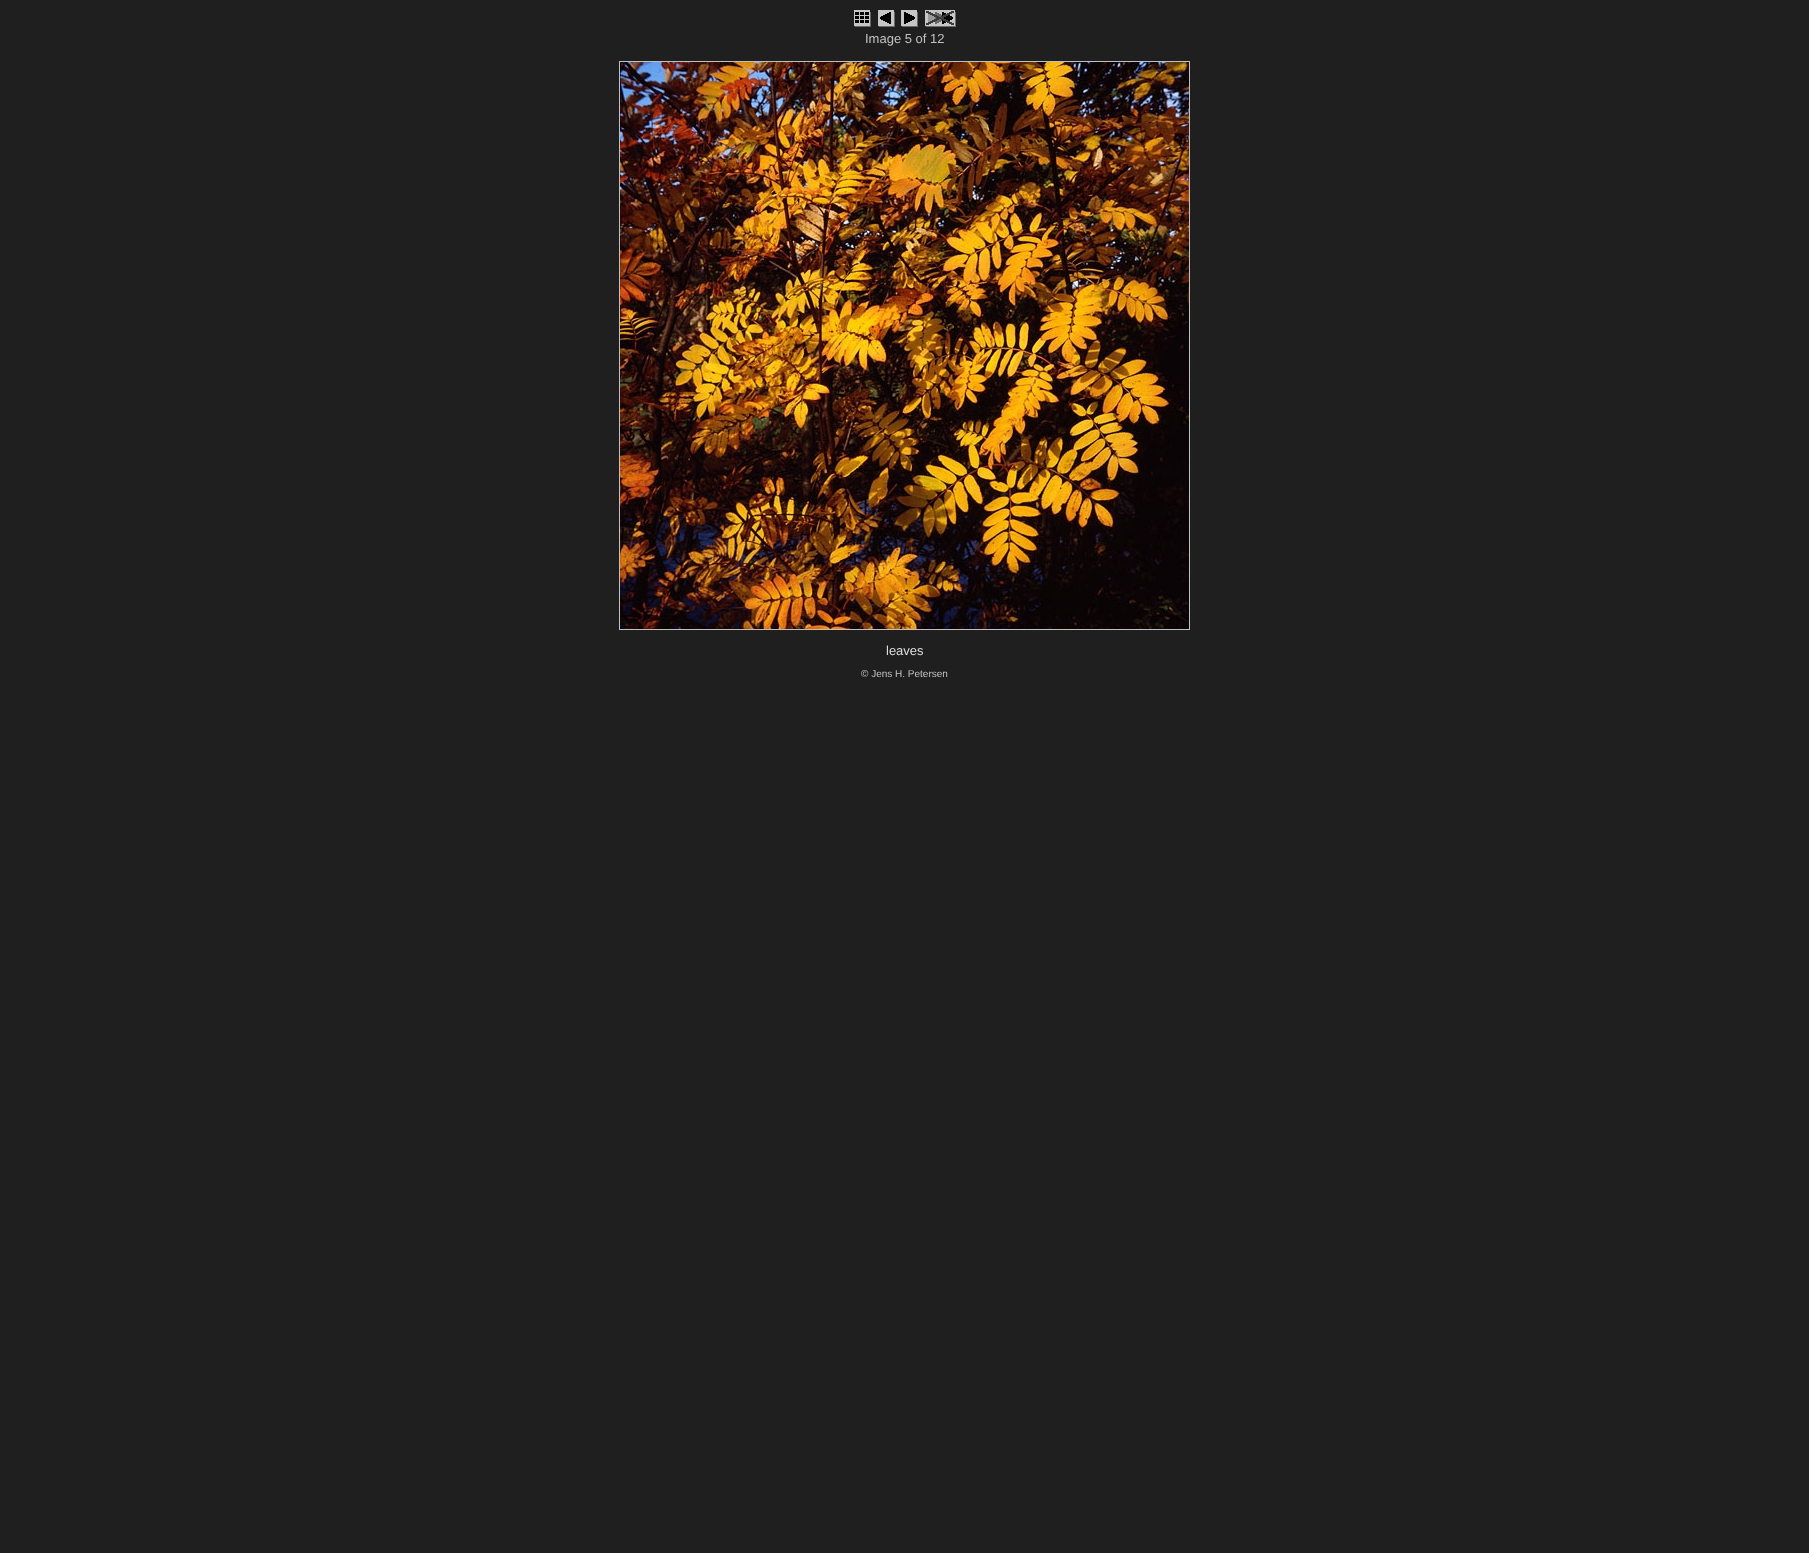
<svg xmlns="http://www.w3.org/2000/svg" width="1809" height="1553">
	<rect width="100%" height="100%" fill="#1F1F1F" />
	<image x="854" y="10" width="17" height="17" href="assets/img1.png" />
	<image x="878" y="10" width="17" height="17" href="assets/img2.png" />
	<image x="901" y="10" width="17" height="17" href="assets/img3.png" />
	<image x="925" y="10" width="31" height="17" href="assets/img4.png" />
	<text x="865" y="43" font-family="Liberation Sans" font-size="13" fill="#C0C0C0">Image 5 of 12</text>
	<rect x="619.5" y="61.5" width="570" height="568" fill="none" stroke="#C0C0C0" />
	<image x="620" y="62" width="569" height="567" href="assets/img5.png" />
	<text x="886" y="655" font-family="Liberation Sans" font-size="13" fill="#DFDFDF">leaves</text>
	<text x="861" y="677" font-family="Liberation Sans" font-size="10" fill="#C0C0C0">© Jens H. Petersen</text>
</svg>
